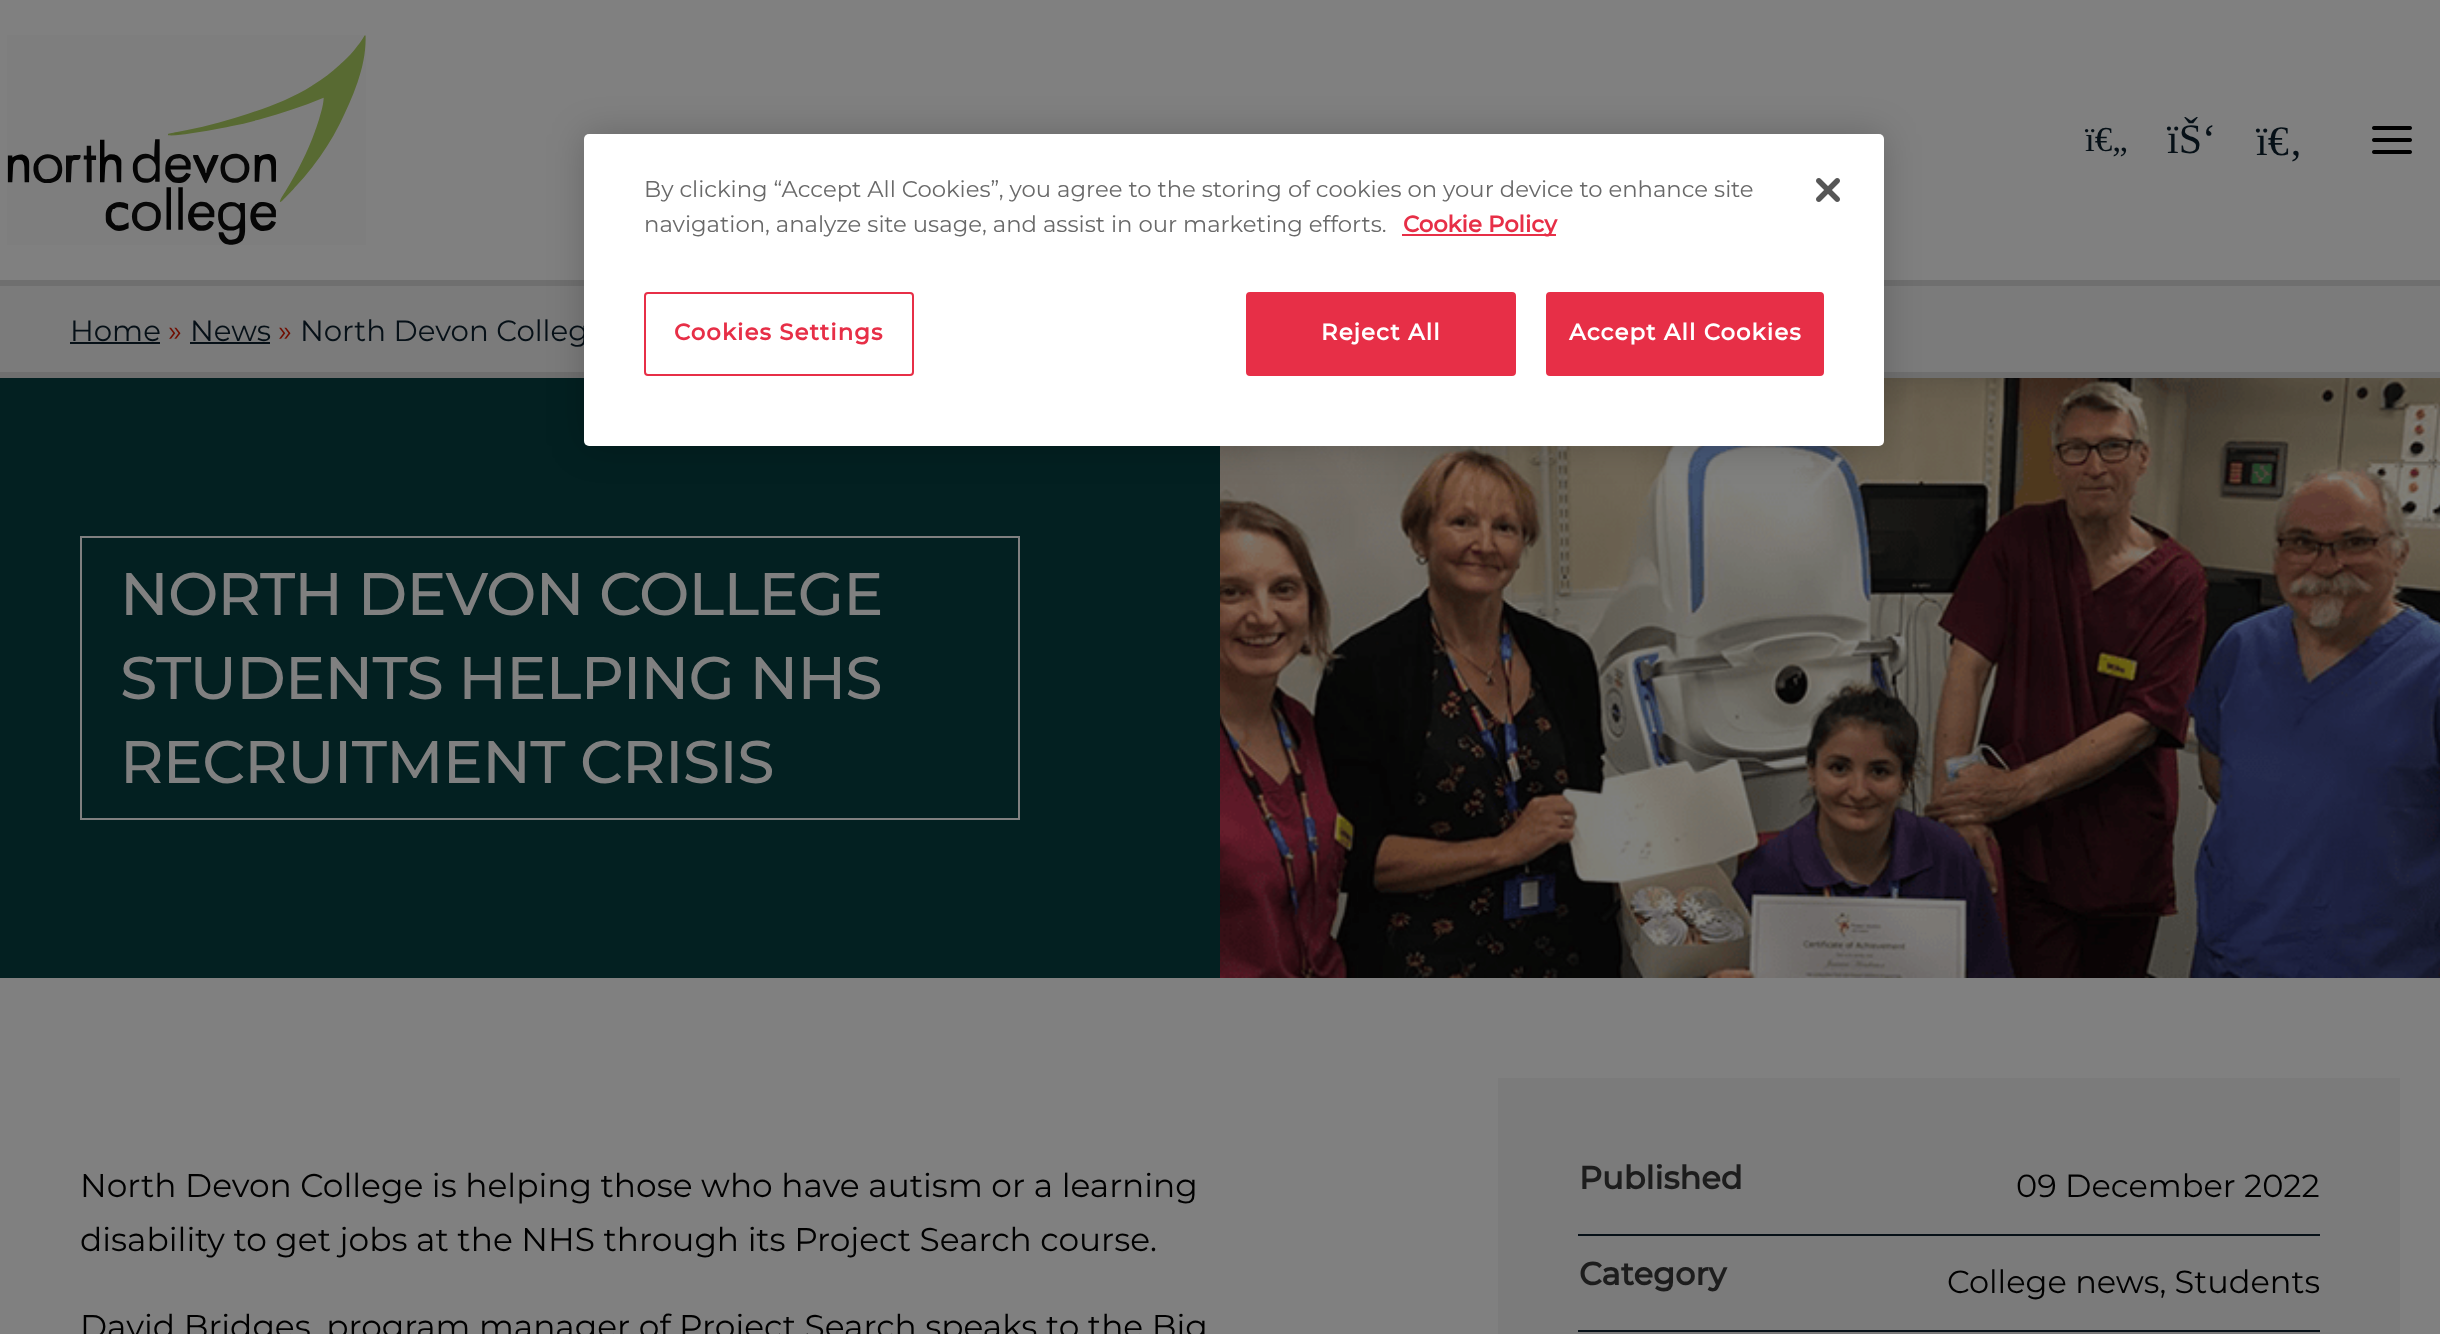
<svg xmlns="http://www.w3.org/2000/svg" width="2440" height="1334">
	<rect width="100%" height="100%" fill="#808080" />
	<rect x="0" y="280" width="2440" height="6" fill="#6F6F6F" />
	<image x="7" y="35" width="359" height="210" href="assets/img1.png" />
	<text x="2085" y="151" font-family="Liberation Serif" font-size="35" fill="#061017">ï€„</text>
	<g font-family="Liberation Serif" font-size="42" fill="#061017">
		<text x="2167" y="153">ïŠ‘</text>
		<text x="2256" y="155">ï€‚</text>
	</g>
	<image x="2372" y="126" width="40" height="28" href="assets/img2.png" />
	<rect x="0" y="286" width="2440" height="86" fill="#7B7B7B" />
	<rect x="0" y="372" width="2440" height="6" fill="#6F6F6F" />
	<text x="70" y="341" font-family="Montserrat" font-size="29.25" fill="#061017">Home</text>
	<rect x="70" y="342" width="90" height="2" fill="#061017" />
	<text x="168" y="341" font-family="Montserrat" font-size="29.25" fill="#700D00">»</text>
	<text x="190" y="341" font-family="Montserrat" font-size="29.25" fill="#061017">News</text>
	<rect x="190" y="342" width="80" height="2" fill="#061017" />
	<text x="278" y="341" font-family="Montserrat" font-size="29.25" fill="#700D00">»</text>
	<text x="300" y="341" font-family="Montserrat" font-size="29.25" fill="#061017">North Devon Colleg</text>
	<rect x="0" y="378" width="1220" height="600" fill="#032021" />
	<rect x="81" y="537" width="938" height="282" fill="none" stroke="#808080" stroke-width="2" />
	<g font-family="Montserrat" font-size="60" font-weight="500" letter-spacing="-0.75" fill="#808080">
		<text x="120" y="615">NORTH DEVON COLLEGE</text>
		<text x="120" y="699">STUDENTS HELPING NHS</text>
		<text x="120" y="783">RECRUITMENT CRISIS</text>
	</g>
	<image x="1220" y="378" width="1220" height="600" href="assets/img3.png" />
	<g font-family="Montserrat" font-size="32.85" fill="#000000">
		<text x="80" y="1197">North Devon College is helping those who have autism or a learning</text>
		<text x="80" y="1251">disability to get jobs at the NHS through its Project Search course.</text>
		<text x="80" y="1338">David Bridges, program manager of Project Search speaks to the Big</text>
	</g>
	<rect x="1498" y="1078" width="902" height="256" fill="#7B7B7B" />
	<text x="1579" y="1189" font-family="Montserrat" font-size="32" font-weight="700" fill="#1D1D1D">Published</text>
	<text x="2016" y="1197" font-family="Montserrat" font-size="32" fill="#000000">09 December 2022</text>
	<rect x="1578" y="1234" width="742" height="2" fill="#061017" />
	<text x="1579" y="1285" font-family="Montserrat" font-size="32" font-weight="700" fill="#1D1D1D">Category</text>
	<text x="1947" y="1293" font-family="Montserrat" font-size="32" fill="#000000">College news, Students</text>
	<rect x="1578" y="1330" width="742" height="2" fill="#061017" />
	<rect x="584" y="134" width="1300" height="312" rx="5" fill="#000000" fill-opacity="0.2" filter="blur(18px)" />
	<rect x="584" y="134" width="1300" height="312" rx="5" fill="#FFFFFF" />
	<g font-family="Montserrat" font-size="22.75" fill="#696969">
		<text x="644" y="197">By clicking “Accept All Cookies”, you agree to the storing of cookies on your device to enhance site</text>
		<text x="644" y="232">navigation, analyze site usage, and assist in our marketing efforts.</text>
	</g>
	<rect x="1402" y="234" width="154" height="2" fill="#E72F47" />
	<text x="1403" y="232" font-family="Montserrat" font-size="22.75" font-weight="700" fill="#E72F47">Cookie Policy</text>
	<image x="1816" y="178" width="24" height="24" href="assets/img4.png" />
	<rect x="645" y="293" width="268" height="82" rx="3" fill="none" stroke="#E72F47" stroke-width="2" />
	<text x="674" y="340" font-family="Montserrat" font-size="22.75" font-weight="700" letter-spacing="1.1" fill="#E72F47">Cookies Settings</text>
	<rect x="1247" y="293" width="268" height="82" rx="3" fill="#E72F47" stroke="#E72F47" stroke-width="2" />
	<text x="1321" y="340" font-family="Montserrat" font-size="22.75" font-weight="700" letter-spacing="1.1" fill="#FFFFFF">Reject All</text>
	<rect x="1547" y="293" width="276" height="82" rx="3" fill="#E72F47" stroke="#E72F47" stroke-width="2" />
	<text x="1569" y="340" font-family="Montserrat" font-size="22.75" font-weight="700" letter-spacing="1.1" fill="#FFFFFF">Accept All Cookies</text>
</svg>
